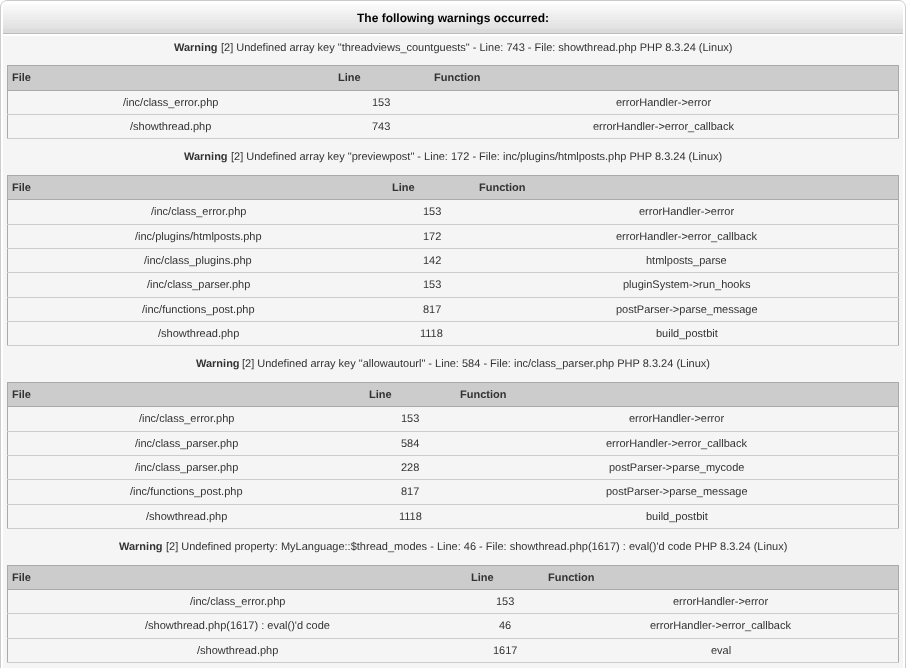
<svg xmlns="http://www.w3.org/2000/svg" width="906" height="668">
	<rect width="100%" height="100%" fill="#FFFFFF" />
	<rect x="0.5" y="0.5" width="905" height="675" rx="6.5" fill="none" stroke="#CCCCCC" />
	<rect x="3" y="29" width="900" height="4" fill="#DCDBDC" />
	<image x="3" y="4" width="900" height="25" href="assets/img1.png" />
	<rect x="3" y="33" width="900" height="1" fill="#BBBBBB" />
	<text x="357" y="22" font-family="Liberation Sans" font-size="12" font-weight="700" fill="#000000">The following warnings occurred:</text>
	<rect x="3" y="36" width="900" height="632" fill="#F5F5F5" />
	<text x="174" y="51" font-family="Liberation Sans" font-size="11" font-weight="700" fill="#333333">Warning</text>
	<text x="221" y="51" font-family="Liberation Sans" font-size="11" fill="#333333">[2] Undefined array key "threadviews_countguests" - Line: 743 - File: showthread.php PHP 8.3.24 (Linux)</text>
	<rect x="7" y="65" width="892" height="1" fill="#AAAAAA" />
	<rect x="898" y="65" width="1" height="74" fill="#AAAAAA" />
	<rect x="7" y="65" width="1" height="74" fill="#AAAAAA" />
	<rect x="8" y="66" width="890" height="24" fill="#CCCCCC" />
	<g font-family="Liberation Sans" font-size="11" font-weight="700" fill="#333333">
		<text x="12" y="81">File</text>
		<text x="338" y="81">Line</text>
	</g>
	<rect x="7" y="90" width="892" height="1" fill="#AAAAAA" />
	<text x="434" y="81" font-family="Liberation Sans" font-size="11" font-weight="700" fill="#333333">Function</text>
	<g font-family="Liberation Sans" font-size="11" fill="#333333">
		<text x="123" y="106">/inc/class_error.php</text>
		<text x="372" y="106">153</text>
	</g>
	<rect x="7" y="114" width="892" height="1" fill="#CCCCCC" />
	<g font-family="Liberation Sans" font-size="11" fill="#333333">
		<text x="616" y="106">errorHandler-&gt;error</text>
		<text x="130" y="130">/showthread.php</text>
		<text x="372" y="130">743</text>
	</g>
	<rect x="7" y="138" width="892" height="1" fill="#CCCCCC" />
	<text x="593" y="130" font-family="Liberation Sans" font-size="11" fill="#333333">errorHandler-&gt;error_callback</text>
	<text x="184" y="160" font-family="Liberation Sans" font-size="11" font-weight="700" fill="#333333">Warning</text>
	<text x="231" y="160" font-family="Liberation Sans" font-size="11" fill="#333333">[2] Undefined array key "previewpost" - Line: 172 - File: inc/plugins/htmlposts.php PHP 8.3.24 (Linux)</text>
	<rect x="7" y="175" width="892" height="1" fill="#AAAAAA" />
	<rect x="898" y="175" width="1" height="171" fill="#AAAAAA" />
	<rect x="7" y="175" width="1" height="171" fill="#AAAAAA" />
	<rect x="8" y="176" width="890" height="23" fill="#CCCCCC" />
	<g font-family="Liberation Sans" font-size="11" font-weight="700" fill="#333333">
		<text x="12" y="191">File</text>
		<text x="392" y="191">Line</text>
	</g>
	<rect x="7" y="199" width="892" height="1" fill="#AAAAAA" />
	<text x="479" y="191" font-family="Liberation Sans" font-size="11" font-weight="700" fill="#333333">Function</text>
	<g font-family="Liberation Sans" font-size="11" fill="#333333">
		<text x="151" y="215">/inc/class_error.php</text>
		<text x="423" y="215">153</text>
	</g>
	<rect x="7" y="224" width="892" height="1" fill="#CCCCCC" />
	<g font-family="Liberation Sans" font-size="11" fill="#333333">
		<text x="639" y="215">errorHandler-&gt;error</text>
		<text x="135" y="240">/inc/plugins/htmlposts.php</text>
		<text x="423" y="240">172</text>
	</g>
	<rect x="7" y="248" width="892" height="1" fill="#CCCCCC" />
	<g font-family="Liberation Sans" font-size="11" fill="#333333">
		<text x="616" y="240">errorHandler-&gt;error_callback</text>
		<text x="144" y="264">/inc/class_plugins.php</text>
		<text x="423" y="264">142</text>
	</g>
	<rect x="7" y="272" width="892" height="1" fill="#CCCCCC" />
	<g font-family="Liberation Sans" font-size="11" fill="#333333">
		<text x="646" y="264">htmlposts_parse</text>
		<text x="147" y="288">/inc/class_parser.php</text>
		<text x="423" y="288">153</text>
	</g>
	<rect x="7" y="297" width="892" height="1" fill="#CCCCCC" />
	<g font-family="Liberation Sans" font-size="11" fill="#333333">
		<text x="623" y="288">pluginSystem-&gt;run_hooks</text>
		<text x="142" y="313">/inc/functions_post.php</text>
		<text x="423" y="313">817</text>
	</g>
	<rect x="7" y="321" width="892" height="1" fill="#CCCCCC" />
	<g font-family="Liberation Sans" font-size="11" fill="#333333">
		<text x="616" y="313">postParser-&gt;parse_message</text>
		<text x="158" y="337">/showthread.php</text>
		<text x="420" y="337">1118</text>
	</g>
	<rect x="7" y="345" width="892" height="1" fill="#CCCCCC" />
	<text x="656" y="337" font-family="Liberation Sans" font-size="11" fill="#333333">build_postbit</text>
	<text x="196" y="367" font-family="Liberation Sans" font-size="11" font-weight="700" fill="#333333">Warning</text>
	<text x="242" y="367" font-family="Liberation Sans" font-size="11" fill="#333333">[2] Undefined array key "allowautourl" - Line: 584 - File: inc/class_parser.php PHP 8.3.24 (Linux)</text>
	<rect x="7" y="382" width="892" height="1" fill="#AAAAAA" />
	<rect x="898" y="382" width="1" height="147" fill="#AAAAAA" />
	<rect x="7" y="382" width="1" height="147" fill="#AAAAAA" />
	<rect x="8" y="383" width="890" height="23" fill="#CCCCCC" />
	<g font-family="Liberation Sans" font-size="11" font-weight="700" fill="#333333">
		<text x="12" y="398">File</text>
		<text x="369" y="398">Line</text>
	</g>
	<rect x="7" y="406" width="892" height="1" fill="#AAAAAA" />
	<text x="460" y="398" font-family="Liberation Sans" font-size="11" font-weight="700" fill="#333333">Function</text>
	<g font-family="Liberation Sans" font-size="11" fill="#333333">
		<text x="139" y="422">/inc/class_error.php</text>
		<text x="401" y="422">153</text>
	</g>
	<rect x="7" y="431" width="892" height="1" fill="#CCCCCC" />
	<g font-family="Liberation Sans" font-size="11" fill="#333333">
		<text x="629" y="422">errorHandler-&gt;error</text>
		<text x="135" y="447">/inc/class_parser.php</text>
		<text x="401" y="447">584</text>
	</g>
	<rect x="7" y="455" width="892" height="1" fill="#CCCCCC" />
	<g font-family="Liberation Sans" font-size="11" fill="#333333">
		<text x="606" y="447">errorHandler-&gt;error_callback</text>
		<text x="135" y="471">/inc/class_parser.php</text>
		<text x="401" y="471">228</text>
	</g>
	<rect x="7" y="479" width="892" height="1" fill="#CCCCCC" />
	<g font-family="Liberation Sans" font-size="11" fill="#333333">
		<text x="609" y="471">postParser-&gt;parse_mycode</text>
		<text x="130" y="495">/inc/functions_post.php</text>
		<text x="401" y="495">817</text>
	</g>
	<rect x="7" y="504" width="892" height="1" fill="#CCCCCC" />
	<g font-family="Liberation Sans" font-size="11" fill="#333333">
		<text x="606" y="495">postParser-&gt;parse_message</text>
		<text x="146" y="520">/showthread.php</text>
		<text x="399" y="520">1118</text>
	</g>
	<rect x="7" y="528" width="892" height="1" fill="#CCCCCC" />
	<text x="646" y="520" font-family="Liberation Sans" font-size="11" fill="#333333">build_postbit</text>
	<text x="119" y="550" font-family="Liberation Sans" font-size="11" font-weight="700" fill="#333333">Warning</text>
	<text x="166" y="550" font-family="Liberation Sans" font-size="11" fill="#333333">[2] Undefined property: MyLanguage::$thread_modes - Line: 46 - File: showthread.php(1617) : eval()'d code PHP 8.3.24 (Linux)</text>
	<rect x="7" y="565" width="892" height="1" fill="#AAAAAA" />
	<rect x="898" y="565" width="1" height="98" fill="#AAAAAA" />
	<rect x="7" y="565" width="1" height="98" fill="#AAAAAA" />
	<rect x="8" y="566" width="890" height="23" fill="#CCCCCC" />
	<g font-family="Liberation Sans" font-size="11" font-weight="700" fill="#333333">
		<text x="12" y="581">File</text>
		<text x="471" y="581">Line</text>
	</g>
	<rect x="7" y="589" width="892" height="1" fill="#AAAAAA" />
	<text x="548" y="581" font-family="Liberation Sans" font-size="11" font-weight="700" fill="#333333">Function</text>
	<g font-family="Liberation Sans" font-size="11" fill="#333333">
		<text x="190" y="605">/inc/class_error.php</text>
		<text x="496" y="605">153</text>
	</g>
	<rect x="7" y="613" width="892" height="1" fill="#CCCCCC" />
	<g font-family="Liberation Sans" font-size="11" fill="#333333">
		<text x="673" y="605">errorHandler-&gt;error</text>
		<text x="145" y="629">/showthread.php(1617) : eval()'d code</text>
		<text x="499" y="629">46</text>
	</g>
	<rect x="7" y="638" width="892" height="1" fill="#CCCCCC" />
	<g font-family="Liberation Sans" font-size="11" fill="#333333">
		<text x="650" y="629">errorHandler-&gt;error_callback</text>
		<text x="197" y="654">/showthread.php</text>
		<text x="493" y="654">1617</text>
	</g>
	<rect x="7" y="662" width="892" height="1" fill="#CCCCCC" />
	<text x="711" y="654" font-family="Liberation Sans" font-size="11" fill="#333333">eval</text>
</svg>
